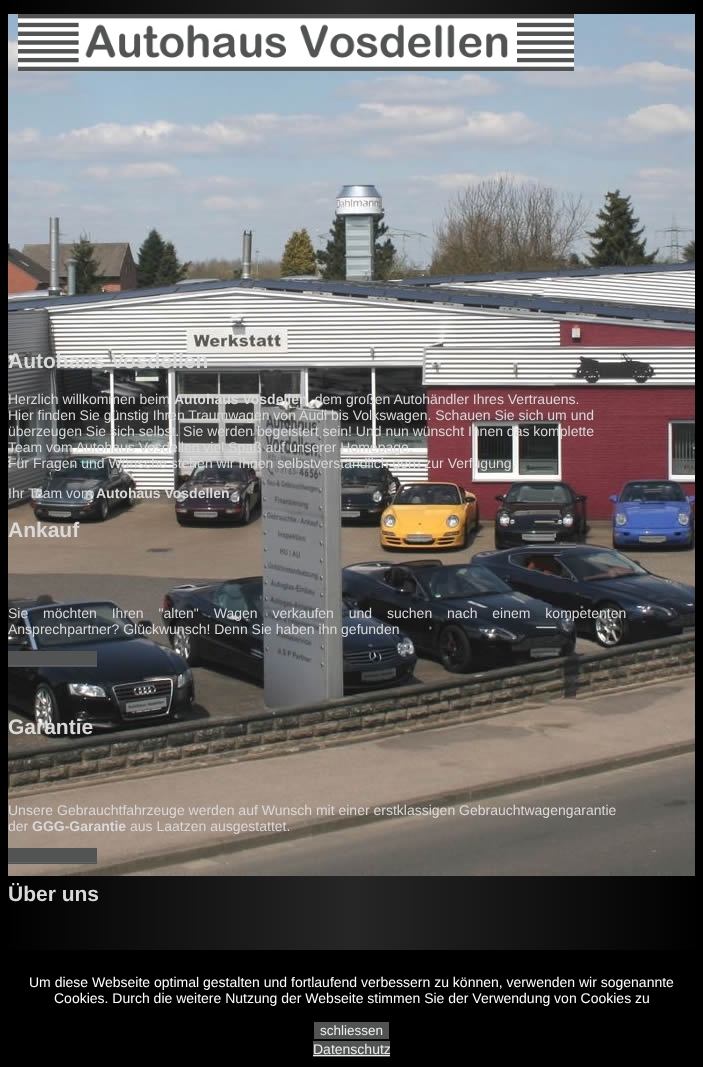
<svg xmlns="http://www.w3.org/2000/svg" width="703" height="1067">
	<defs>
		<linearGradient id="g1" gradientUnits="userSpaceOnUse" x1="0" y1="819" x2="703" y2="819"><stop offset="0" stop-color="#000000" /><stop offset="0.5" stop-color="#262626" /><stop offset="1" stop-color="#000000" /></linearGradient>
	</defs>
	<rect width="100%" height="100%" fill="#FFFFFF" />
	<rect x="0" y="0" width="703" height="950" fill="url(#g1)" />
	<image x="8" y="14" width="687" height="862" href="assets/img1.png" />
	<image x="18" y="14" width="556" height="57" href="assets/img2.png" />
	<text x="8" y="368" font-family="Liberation Sans" font-size="21" font-weight="700" fill="#D9D9D9">Autohaus Vosdellen</text>
	<text x="8" y="404" font-family="Liberation Sans" font-size="14" fill="#D9D9D9">Herzlich willkommen beim</text>
	<text x="174" y="404" font-family="Liberation Sans" font-size="14" font-weight="700" fill="#D9D9D9">Autohaus Vosdellen</text>
	<g font-family="Liberation Sans" font-size="14" fill="#D9D9D9">
		<text x="307" y="404">, dem großen Autohändler Ihres Vertrauens.</text>
		<text x="8" y="420">Hier finden Sie günstig Ihren Traumwagen von Audi bis Volkswagen. Schauen Sie sich um und</text>
		<text x="8" y="436">überzeugen Sie sich selbst. Sie werden begeistert sein! Und nun wünscht Ihnen das komplette</text>
		<text x="8" y="452">Team vom Autohaus Vosdellen viel Spaß auf unserer Homepage.</text>
		<text x="8" y="468">Für Fragen und Wünsche stehen wir Ihnen selbstverständlich gern zur Verfügung.</text>
		<text x="8" y="498">Ihr Team vom</text>
	</g>
	<text x="96" y="498" font-family="Liberation Sans" font-size="14" font-weight="700" fill="#D9D9D9">Autohaus Vosdellen</text>
	<text x="8" y="537" font-family="Liberation Sans" font-size="21" font-weight="700" fill="#D9D9D9">Ankauf</text>
	<g font-family="Liberation Sans" font-size="14" fill="#D9D9D9">
		<text x="8" y="618" word-spacing="11">Sie möchten Ihren "alten" Wagen verkaufen und suchen nach einem kompetenten</text>
		<text x="8" y="634">Ansprechpartner? Glückwunsch! Denn Sie haben ihn gefunden</text>
	</g>
	<rect x="8" y="651" width="89" height="16" fill="#525453" />
	<rect x="8" y="665" width="89" height="1" fill="#616068" />
	<text x="8" y="734" font-family="Liberation Sans" font-size="21" font-weight="700" fill="#D9D9D9">Garantie</text>
	<g font-family="Liberation Sans" font-size="14" fill="#D9D9D9">
		<text x="8" y="815">Unsere Gebrauchtfahrzeuge werden auf Wunsch mit einer erstklassigen Gebrauchtwagengarantie</text>
		<text x="8" y="831">der</text>
	</g>
	<text x="32" y="831" font-family="Liberation Sans" font-size="14" font-weight="700" fill="#D9D9D9">GGG-Garantie</text>
	<text x="130" y="831" font-family="Liberation Sans" font-size="14" fill="#D9D9D9">aus Laatzen ausgestattet.</text>
	<rect x="8" y="848" width="89" height="16" fill="#525453" />
	<rect x="8" y="862" width="89" height="1" fill="#616068" />
	<text x="8" y="901" font-family="Liberation Sans" font-size="21" font-weight="700" fill="#D9D9D9">Über uns</text>
	<rect x="0" y="950" width="703" height="117" fill="#000000" />
	<g font-family="Liberation Sans" font-size="14" fill="#FFFFFF">
		<text x="29" y="987">Um diese Webseite optimal gestalten und fortlaufend verbessern zu können, verwenden wir sogenannte</text>
		<text x="54" y="1003">Cookies. Durch die weitere Nutzung der Webseite stimmen Sie der Verwendung von Cookies zu</text>
	</g>
	<rect x="314" y="1022" width="75" height="17" fill="#525453" />
	<text x="320" y="1035" font-family="Liberation Sans" font-size="13.5" fill="#EEEEEE">schliessen</text>
	<rect x="313" y="1041" width="77" height="16" fill="#525453" />
	<text x="313" y="1054" font-family="Liberation Sans" font-size="14" fill="#EEEEEE">Datenschutz</text>
	<rect x="313" y="1055" width="77" height="1" fill="#EEEEEE" />
</svg>
